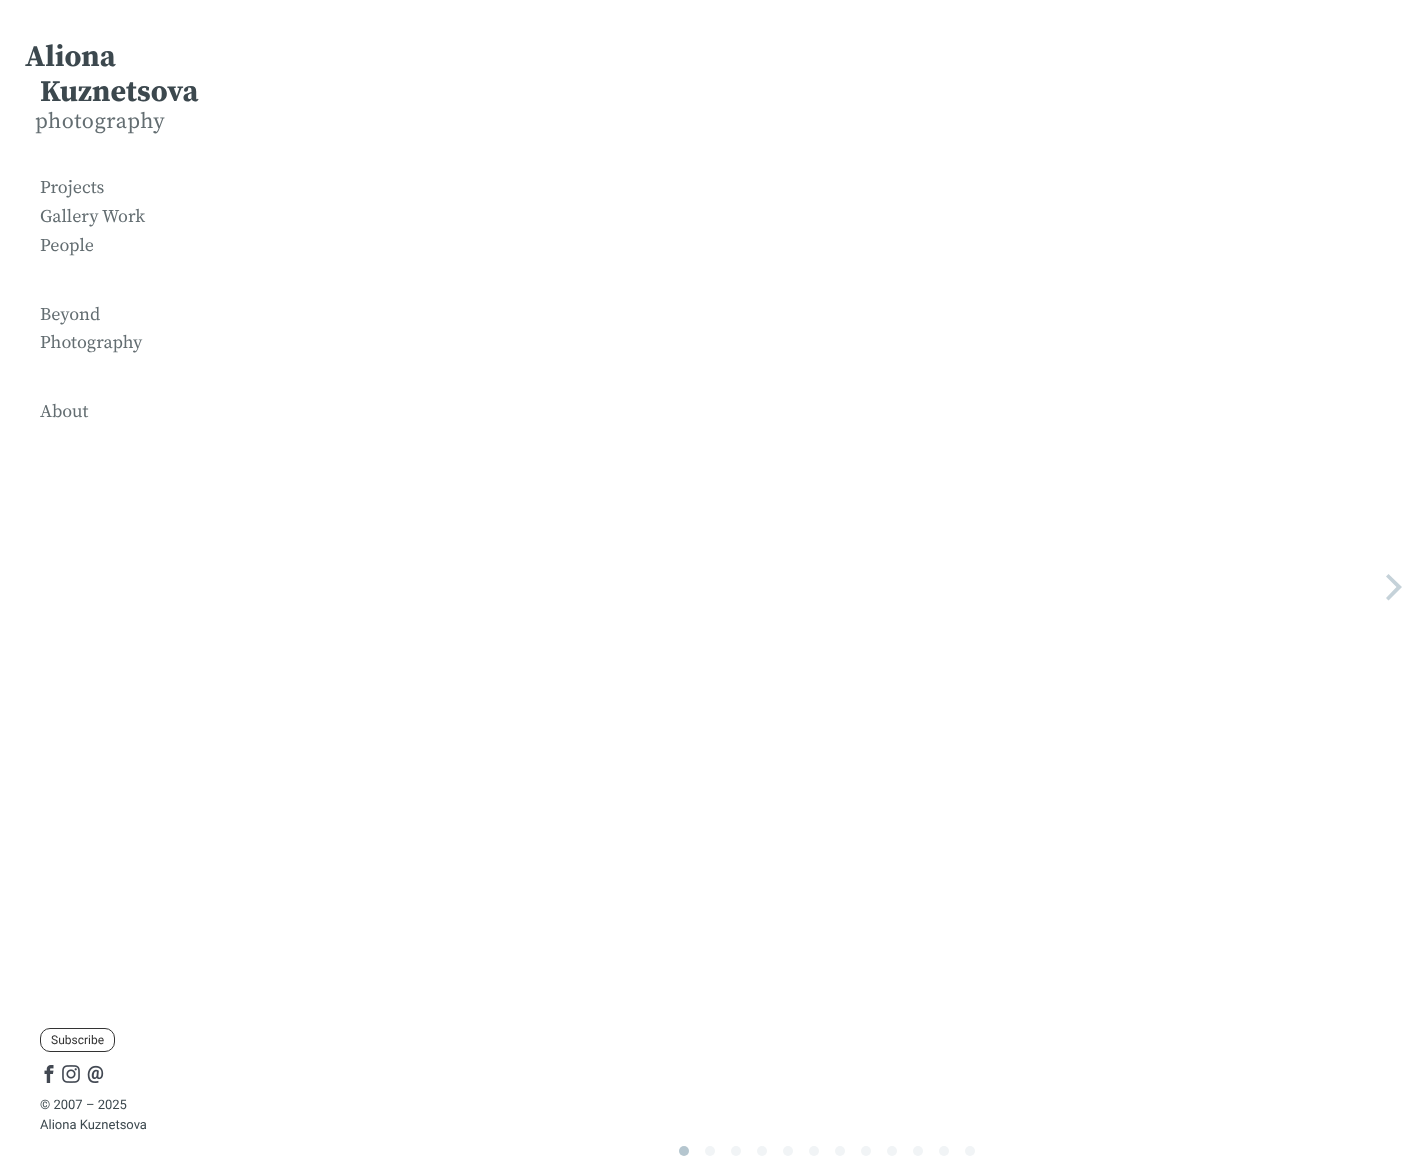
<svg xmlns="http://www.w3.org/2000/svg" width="1413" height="1174">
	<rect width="100%" height="100%" fill="#FFFFFF" />
	<g font-family="Source Serif Pro" font-size="30" font-weight="700" fill="#3C484E">
		<text x="25" y="66">Aliona</text>
		<text x="40" y="101">Kuznetsova</text>
	</g>
	<text x="35" y="128" font-family="Source Serif Pro" font-size="22" letter-spacing="0.5" fill="#636D71">photography</text>
	<g font-family="Source Serif Pro" font-size="18" fill="#636D71">
		<text x="40" y="193">Projects</text>
		<text x="40" y="222">Gallery Work</text>
		<text x="40" y="251">People</text>
		<text x="40" y="320">Beyond</text>
		<text x="40" y="348">Photography</text>
		<text x="40" y="417">About</text>
	</g>
	<rect x="40.5" y="1028.5" width="74" height="23" rx="9.5" fill="none" stroke="#333333" />
	<text x="51" y="1044" font-family="Roboto" font-size="12" fill="#333333">Subscribe</text>
	<image x="44" y="1065" width="10" height="18" href="assets/img1.png" />
	<image x="62" y="1065" width="18" height="18" href="assets/img2.png" />
	<image x="87" y="1065" width="17" height="18" href="assets/img3.png" />
	<g font-family="Roboto" font-size="13" fill="#3C484E">
		<text x="40" y="1109">© 2007 – 2025</text>
		<text x="40" y="1129">Aliona Kuznetsova</text>
	</g>
	<path d="M1402 587L1388.5 574L1386 576.5L1396.5 587L1386 598L1388.5 600.5Z" fill="#C5D2D9" />
	<circle cx="684" cy="1151" r="5" fill="#B5C6CF" />
	<circle cx="710" cy="1151" r="5" fill="#F1F4F6" />
	<circle cx="736" cy="1151" r="5" fill="#F1F4F6" />
	<circle cx="762" cy="1151" r="5" fill="#F1F4F6" />
	<circle cx="788" cy="1151" r="5" fill="#F1F4F6" />
	<circle cx="814" cy="1151" r="5" fill="#F1F4F6" />
	<circle cx="840" cy="1151" r="5" fill="#F1F4F6" />
	<circle cx="866" cy="1151" r="5" fill="#F1F4F6" />
	<circle cx="892" cy="1151" r="5" fill="#F1F4F6" />
	<circle cx="918" cy="1151" r="5" fill="#F1F4F6" />
	<circle cx="944" cy="1151" r="5" fill="#F1F4F6" />
	<circle cx="970" cy="1151" r="5" fill="#F1F4F6" />
</svg>
